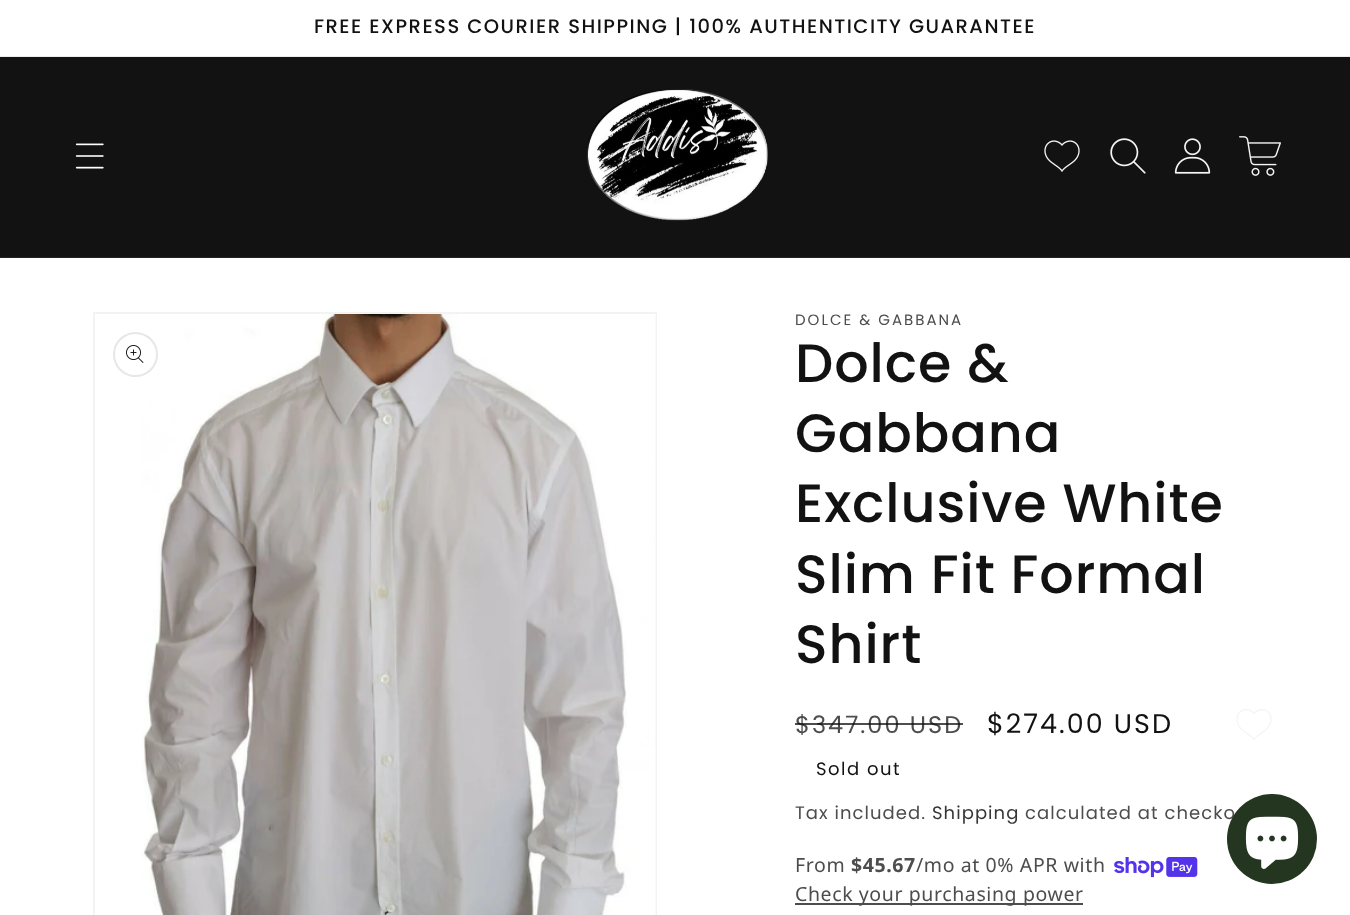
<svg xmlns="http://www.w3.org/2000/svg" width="1350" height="915">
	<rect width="100%" height="100%" fill="#FFFFFF" />
	<rect x="0" y="56" width="1350" height="1" fill="#ECECEC" />
	<text x="314" y="33" font-family="Poppins" font-size="19.5" font-weight="500" letter-spacing="1.5" fill="#121212">FREE EXPRESS COURIER SHIPPING | 100% AUTHENTICITY GUARANTEE</text>
	<rect x="0" y="57" width="1350" height="200" fill="#121212" />
	<rect x="0" y="257" width="1350" height="1" fill="#252525" />
	<image x="75" y="143" width="29" height="26" href="assets/img1.png" />
	<image x="586" y="89" width="182" height="132" href="assets/img2.png" />
	<image x="1044" y="140" width="36" height="32" href="assets/img3.png" />
	<image x="1110" y="138" width="36" height="36" href="assets/img4.png" />
	<image x="1174" y="138" width="37" height="36" href="assets/img5.png" />
	<image x="1239" y="136" width="42" height="40" href="assets/img6.png" />
	<rect x="94" y="313" width="562" height="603" fill="none" stroke="#F3F3F3" stroke-width="2" />
	<image x="141" y="314" width="515" height="601" href="assets/img8.png" />
	<circle cx="135.5" cy="354.5" r="21.5" fill="none" stroke="#E7E7E7" stroke-width="2" />
	<image x="126" y="345" width="18" height="18" href="assets/img7.png" />
	<text x="795" y="325" font-family="Poppins" font-size="15" letter-spacing="2" fill="#4D4D4D">DOLCE &amp; GABBANA</text>
	<g font-family="Poppins" font-size="54" font-weight="500" letter-spacing="0.9" fill="#121212">
		<text x="795" y="382">Dolce &amp;</text>
		<text x="795" y="452">Gabbana</text>
		<text x="795" y="522">Exclusive White</text>
		<text x="795" y="593">Slim Fit Formal</text>
		<text x="795" y="663">Shirt</text>
	</g>
	<text x="795" y="733" font-family="Poppins" font-size="24" letter-spacing="2" fill="#4D4D4D">$347.00 USD</text>
	<rect x="795" y="723" width="168" height="2" fill="#121212" fill-opacity="0.75" />
	<text x="987" y="733" font-family="Poppins" font-size="27" letter-spacing="2" fill="#121212">$274.00 USD</text>
	<text x="816" y="775" font-family="Poppins" font-size="18" letter-spacing="1.5" fill="#121212">Sold out</text>
	<image x="1236" y="709" width="36" height="31" href="assets/img9.png" />
	<text x="795" y="819" font-family="Poppins" font-size="18" letter-spacing="1.05" fill="#4D4D4D">Tax included.</text>
	<text x="932" y="819" font-family="Poppins" font-size="18" letter-spacing="1.05" fill="#363636">Shipping</text>
	<text x="1025" y="819" font-family="Poppins" font-size="18" letter-spacing="1.05" fill="#4D4D4D">calculated at checko</text>
	<text x="795" y="872" font-family="Noto Sans" font-size="19.5" letter-spacing="0.6" fill="#4D4D4D">From</text>
	<text x="851" y="872" font-family="Noto Sans" font-size="19.5" font-weight="700" letter-spacing="0.6" fill="#4D4D4D">$45.67</text>
	<text x="916" y="872" font-family="Noto Sans" font-size="19.5" letter-spacing="0.6" fill="#4D4D4D">/mo at 0% APR with</text>
	<image x="1114" y="857" width="84" height="21" href="assets/img10.png" />
	<rect x="795" y="903" width="288" height="2" fill="#4D4D4D" />
	<text x="795" y="901" font-family="Noto Sans" font-size="19.5" letter-spacing="0.6" fill="#4D4D4D">Check your purchasing power</text>
	<circle cx="1272" cy="839" r="45" fill="#243620" />
	<image x="1245" y="816" width="54" height="53" href="assets/img11.png" />
</svg>
